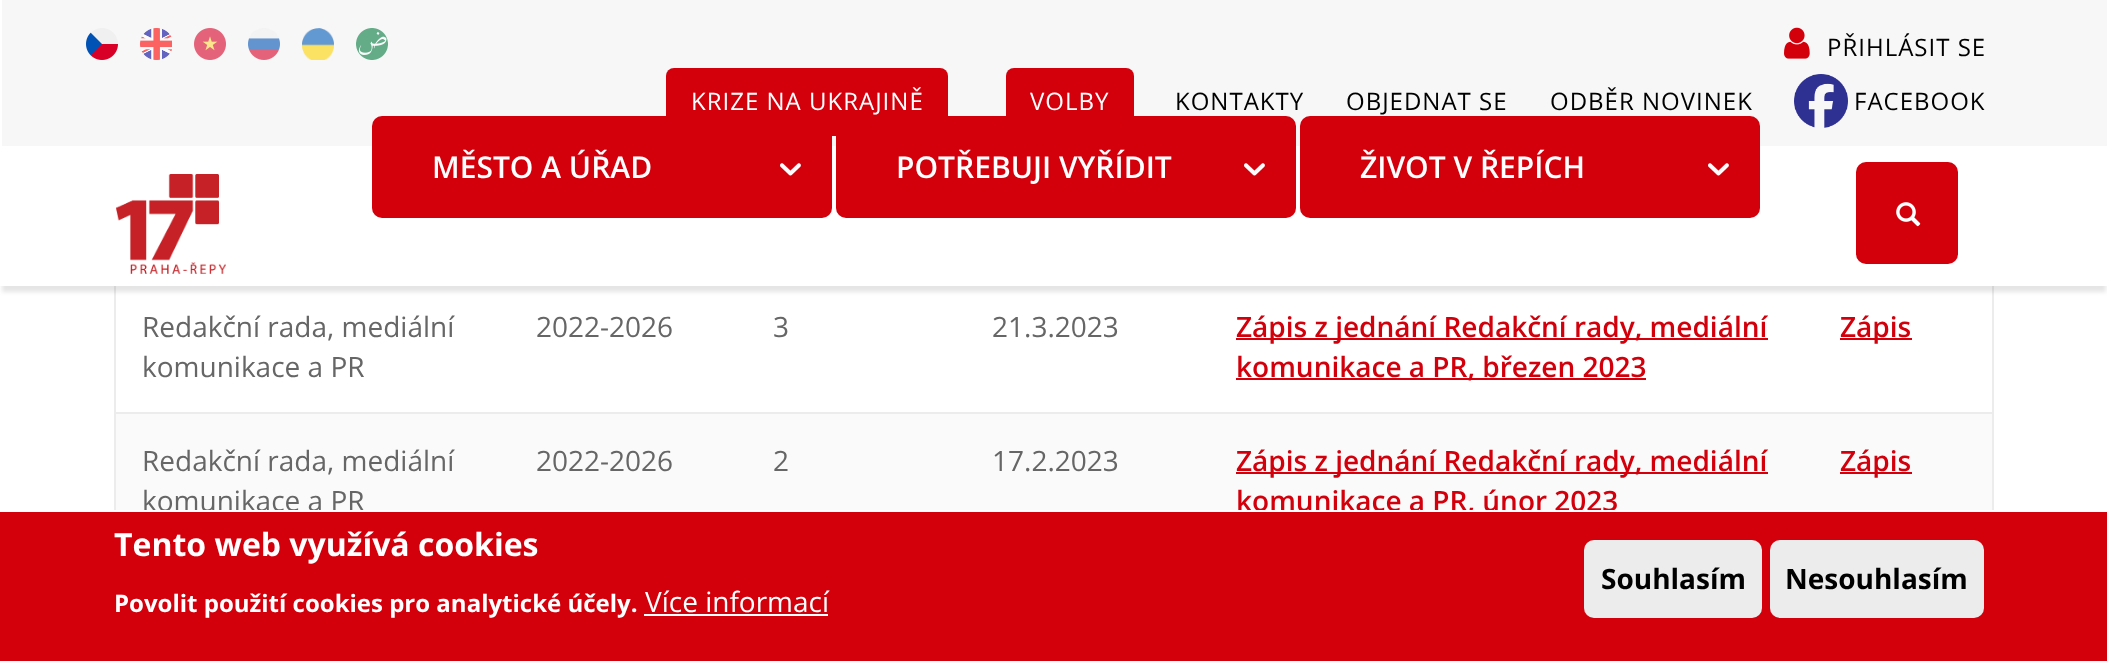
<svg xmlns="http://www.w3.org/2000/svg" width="2107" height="661">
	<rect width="100%" height="100%" fill="#FFFFFF" />
	<rect x="1992" y="286" width="2" height="224" fill="#ECECEC" />
	<rect x="114" y="286" width="2" height="224" fill="#ECECEC" />
	<rect x="2" y="10" width="2104" height="282" fill="#000000" fill-opacity="0.1" filter="blur(2px)" />
	<rect x="0" y="7" width="2107" height="279" fill="#FFFFFF" />
	<rect x="2" y="0" width="2105" height="146" fill="#F7F7F7" />
	<image x="86" y="28" width="32" height="32" href="assets/img1.png" />
	<image x="140" y="28" width="32" height="32" href="assets/img2.png" />
	<image x="194" y="28" width="32" height="32" href="assets/img3.png" />
	<image x="248" y="28" width="32" height="32" href="assets/img4.png" />
	<image x="302" y="28" width="32" height="32" href="assets/img5.png" />
	<image x="356" y="28" width="32" height="32" href="assets/img6.png" />
	<image x="1784" y="27" width="26" height="32" href="assets/img7.png" />
	<text x="1827" y="56" font-family="Open Sans" font-size="24" letter-spacing="1" fill="#000000">PŘIHLÁSIT SE</text>
	<rect x="666" y="68" width="282" height="68" rx="8" fill="#D3000C" />
	<text x="691" y="110" font-family="Open Sans" font-size="24" letter-spacing="1" fill="#FFFFFF">KRIZE NA UKRAJINĚ</text>
	<rect x="1006" y="68" width="128" height="68" rx="8" fill="#D3000C" />
	<text x="1030" y="110" font-family="Open Sans" font-size="24" letter-spacing="1" fill="#FFFFFF">VOLBY</text>
	<g font-family="Open Sans" font-size="24" letter-spacing="1" fill="#000000">
		<text x="1175" y="110">KONTAKTY</text>
		<text x="1346" y="110">OBJEDNAT SE</text>
		<text x="1550" y="110">ODBĚR NOVINEK</text>
	</g>
	<image x="1794" y="74" width="54" height="54" href="assets/img8.png" />
	<text x="1854" y="110" font-family="Open Sans" font-size="24" letter-spacing="1" fill="#000000">FACEBOOK</text>
	<rect x="372" y="116" width="460" height="102" rx="10" fill="#D3000C" />
	<text x="432" y="178" font-family="Open Sans" font-size="30" font-weight="600" fill="#FFFFFF">MĚSTO A ÚŘAD</text>
	<image x="780" y="163" width="21" height="13" href="assets/img9.png" />
	<rect x="836" y="116" width="460" height="102" rx="10" fill="#D3000C" />
	<text x="896" y="178" font-family="Open Sans" font-size="30" font-weight="600" fill="#FFFFFF">POTŘEBUJI VYŘÍDIT</text>
	<image x="1244" y="163" width="21" height="13" href="assets/img9.png" />
	<rect x="1300" y="116" width="460" height="102" rx="10" fill="#D3000C" />
	<text x="1360" y="178" font-family="Open Sans" font-size="30" font-weight="600" fill="#FFFFFF">ŽIVOT V ŘEPÍCH</text>
	<image x="1708" y="163" width="21" height="13" href="assets/img9.png" />
	<image x="116" y="174" width="110" height="100" href="assets/img10.png" />
	<rect x="1856" y="162" width="102" height="102" rx="10" fill="#D3000C" />
	<image x="1896" y="202" width="25" height="25" href="assets/img11.png" />
	<rect x="114" y="412" width="1880" height="2" fill="#ECECEC" />
	<g font-family="Open Sans" font-size="28" fill="#666666">
		<text x="142" y="337">Redakční rada, mediální</text>
		<text x="142" y="377">komunikace a PR</text>
		<text x="536" y="337">2022-2026</text>
		<text x="773" y="337">3</text>
		<text x="992" y="337">21.3.2023</text>
	</g>
	<rect x="1236" y="338" width="532" height="2" fill="#D3000C" />
	<text x="1236" y="337" font-family="Open Sans" font-size="28" font-weight="600" fill="#D3000C">Zápis z jednání Redakční rady, mediální</text>
	<rect x="1236" y="378" width="410" height="2" fill="#D3000C" />
	<text x="1236" y="377" font-family="Open Sans" font-size="28" font-weight="600" fill="#D3000C">komunikace a PR, březen 2023</text>
	<rect x="1840" y="338" width="72" height="2" fill="#D3000C" />
	<text x="1840" y="337" font-family="Open Sans" font-size="28" font-weight="600" fill="#D3000C">Zápis</text>
	<rect x="116" y="414" width="1876" height="96" fill="#FAFAFA" />
	<g font-family="Open Sans" font-size="28" fill="#666666">
		<text x="142" y="471">Redakční rada, mediální</text>
		<text x="142" y="511">komunikace a PR</text>
		<text x="536" y="471">2022-2026</text>
		<text x="773" y="471">2</text>
		<text x="992" y="471">17.2.2023</text>
	</g>
	<rect x="1236" y="472" width="532" height="2" fill="#D3000C" />
	<g font-family="Open Sans" font-size="28" font-weight="600" fill="#D3000C">
		<text x="1236" y="471">Zápis z jednání Redakční rady, mediální</text>
		<text x="1236" y="511">komunikace a PR, únor 2023</text>
	</g>
	<rect x="1840" y="472" width="72" height="2" fill="#D3000C" />
	<text x="1840" y="471" font-family="Open Sans" font-size="28" font-weight="600" fill="#D3000C">Zápis</text>
	<rect x="0" y="512" width="2107" height="149" fill="#D3000C" />
	<rect x="144" y="510" width="1471" height="2" fill="#FFFFFF" />
	<text x="114" y="556" font-family="Open Sans" font-size="32" font-weight="700" fill="#FFFFFF">Tento web využívá cookies</text>
	<text x="114" y="612" font-family="Open Sans" font-size="24" font-weight="700" fill="#FFFFFF">Povolit použití cookies pro analytické účely.</text>
	<text x="645" y="612" font-family="Open Sans" font-size="28" fill="#FFFFFF">Více informací</text>
	<rect x="644" y="614" width="184" height="2" fill="#FFFFFF" />
	<rect x="1584" y="540" width="178" height="78" rx="10" fill="#ECECEC" />
	<text x="1601" y="589" font-family="Open Sans" font-size="28" font-weight="700" fill="#000000">Souhlasím</text>
	<rect x="1770" y="540" width="214" height="78" rx="10" fill="#ECECEC" />
	<text x="1785" y="589" font-family="Open Sans" font-size="28" font-weight="700" fill="#000000">Nesouhlasím</text>
</svg>
